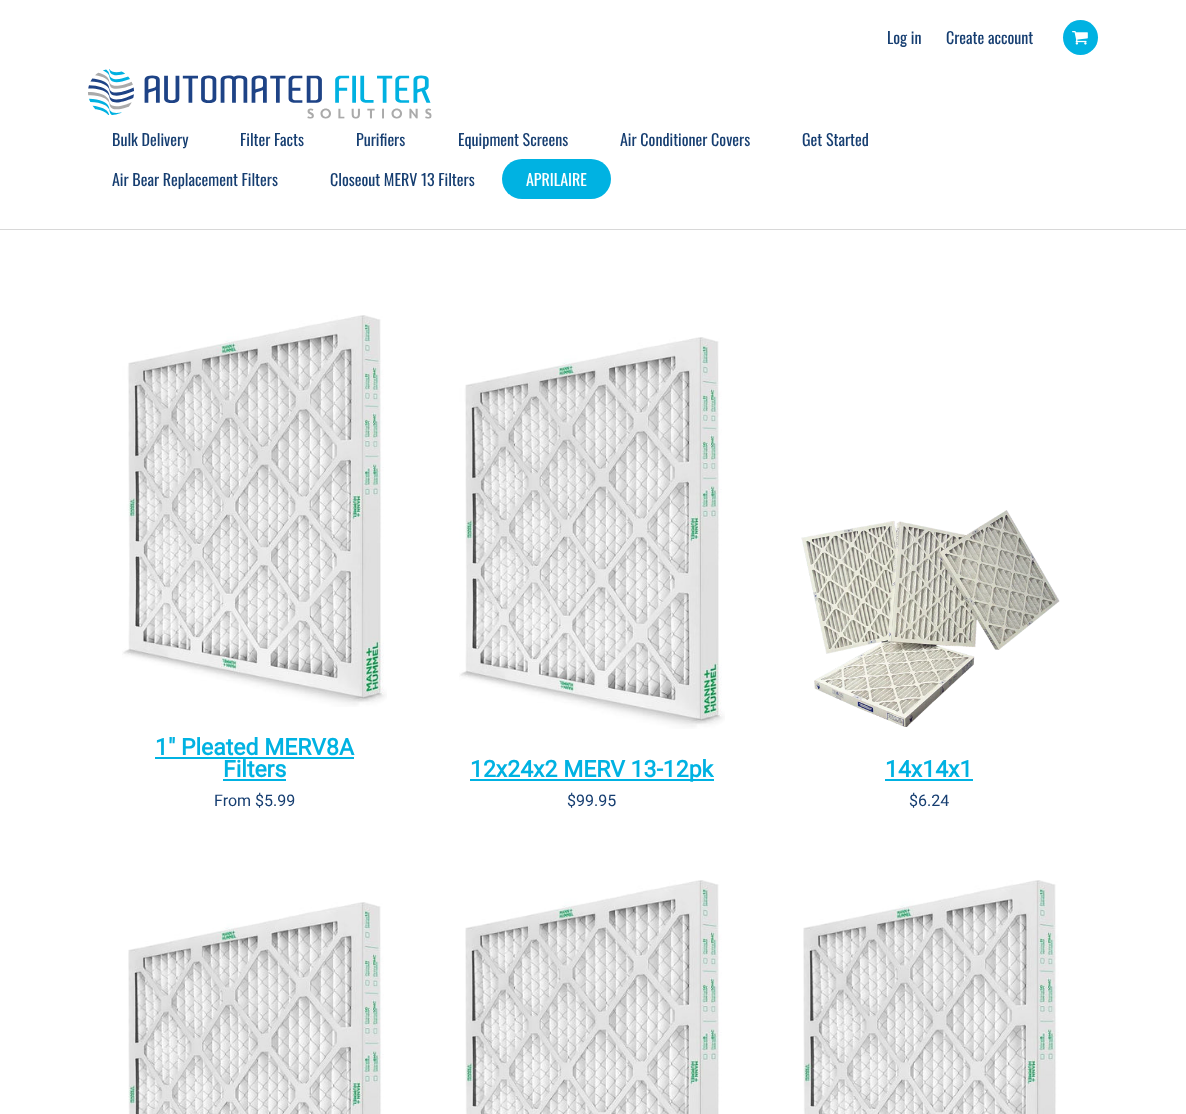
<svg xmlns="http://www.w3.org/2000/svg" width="1186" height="1114">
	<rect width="100%" height="100%" fill="#FFFFFF" />
	<rect x="0" y="229" width="1186" height="1" fill="#D8D8D8" />
	<g font-family="Oswald" font-size="16" fill="#163E71">
		<text x="887" y="44">Log in</text>
		<text x="946" y="44">Create account</text>
	</g>
	<circle cx="1080.5" cy="37.5" r="17.5" fill="#00B2E2" />
	<image x="1072" y="31" width="16" height="14" href="assets/img1.png" />
	<image x="88" y="69" width="344" height="50" href="assets/img2.png" />
	<g font-family="Oswald" font-size="16" fill="#163E71">
		<text x="112" y="146">Bulk Delivery</text>
		<text x="240" y="146">Filter Facts</text>
		<text x="356" y="146">Purifiers</text>
		<text x="458" y="146">Equipment Screens</text>
		<text x="620" y="146">Air Conditioner Covers</text>
		<text x="802" y="146">Get Started</text>
		<text x="112" y="186">Air Bear Replacement Filters</text>
		<text x="330" y="186">Closeout MERV 13 Filters</text>
	</g>
	<rect x="502" y="159" width="109" height="40" rx="20" fill="#00B2E2" />
	<text x="526" y="186" font-family="Oswald" font-size="16" fill="#FFFFFF">APRILAIRE</text>
	<image x="122" y="315" width="265" height="392" href="assets/img3.png" />
	<g font-family="Roboto" font-size="23" font-weight="700" fill="#00B2E2">
		<text x="155" y="755">1" Pleated MERV8A</text>
		<text x="223" y="777">Filters</text>
	</g>
	<rect x="155" y="757" width="199" height="2" fill="#00B2E2" />
	<rect x="223" y="779" width="63" height="2" fill="#00B2E2" />
	<text x="214" y="806" font-family="Roboto" font-size="16" fill="#163E71">From $5.99</text>
	<image x="459" y="337" width="266" height="392" href="assets/img4.png" />
	<rect x="470" y="779" width="244" height="2" fill="#00B2E2" />
	<text x="470" y="777" font-family="Roboto" font-size="23" font-weight="700" fill="#00B2E2">12x24x2 MERV 13-12pk</text>
	<text x="567" y="806" font-family="Roboto" font-size="16" fill="#163E71">$99.95</text>
	<image x="801" y="510" width="259" height="217" href="assets/img5.png" />
	<text x="885" y="777" font-family="Roboto" font-size="23" font-weight="700" fill="#00B2E2">14x14x1</text>
	<rect x="885" y="779" width="88" height="2" fill="#00B2E2" />
	<text x="909" y="806" font-family="Roboto" font-size="16" fill="#163E71">$6.24</text>
	<image x="128" y="902" width="256" height="212" href="assets/img6.png" />
	<image x="465" y="880" width="257" height="234" href="assets/img7.png" />
	<image x="803" y="880" width="256" height="234" href="assets/img8.png" />
</svg>
